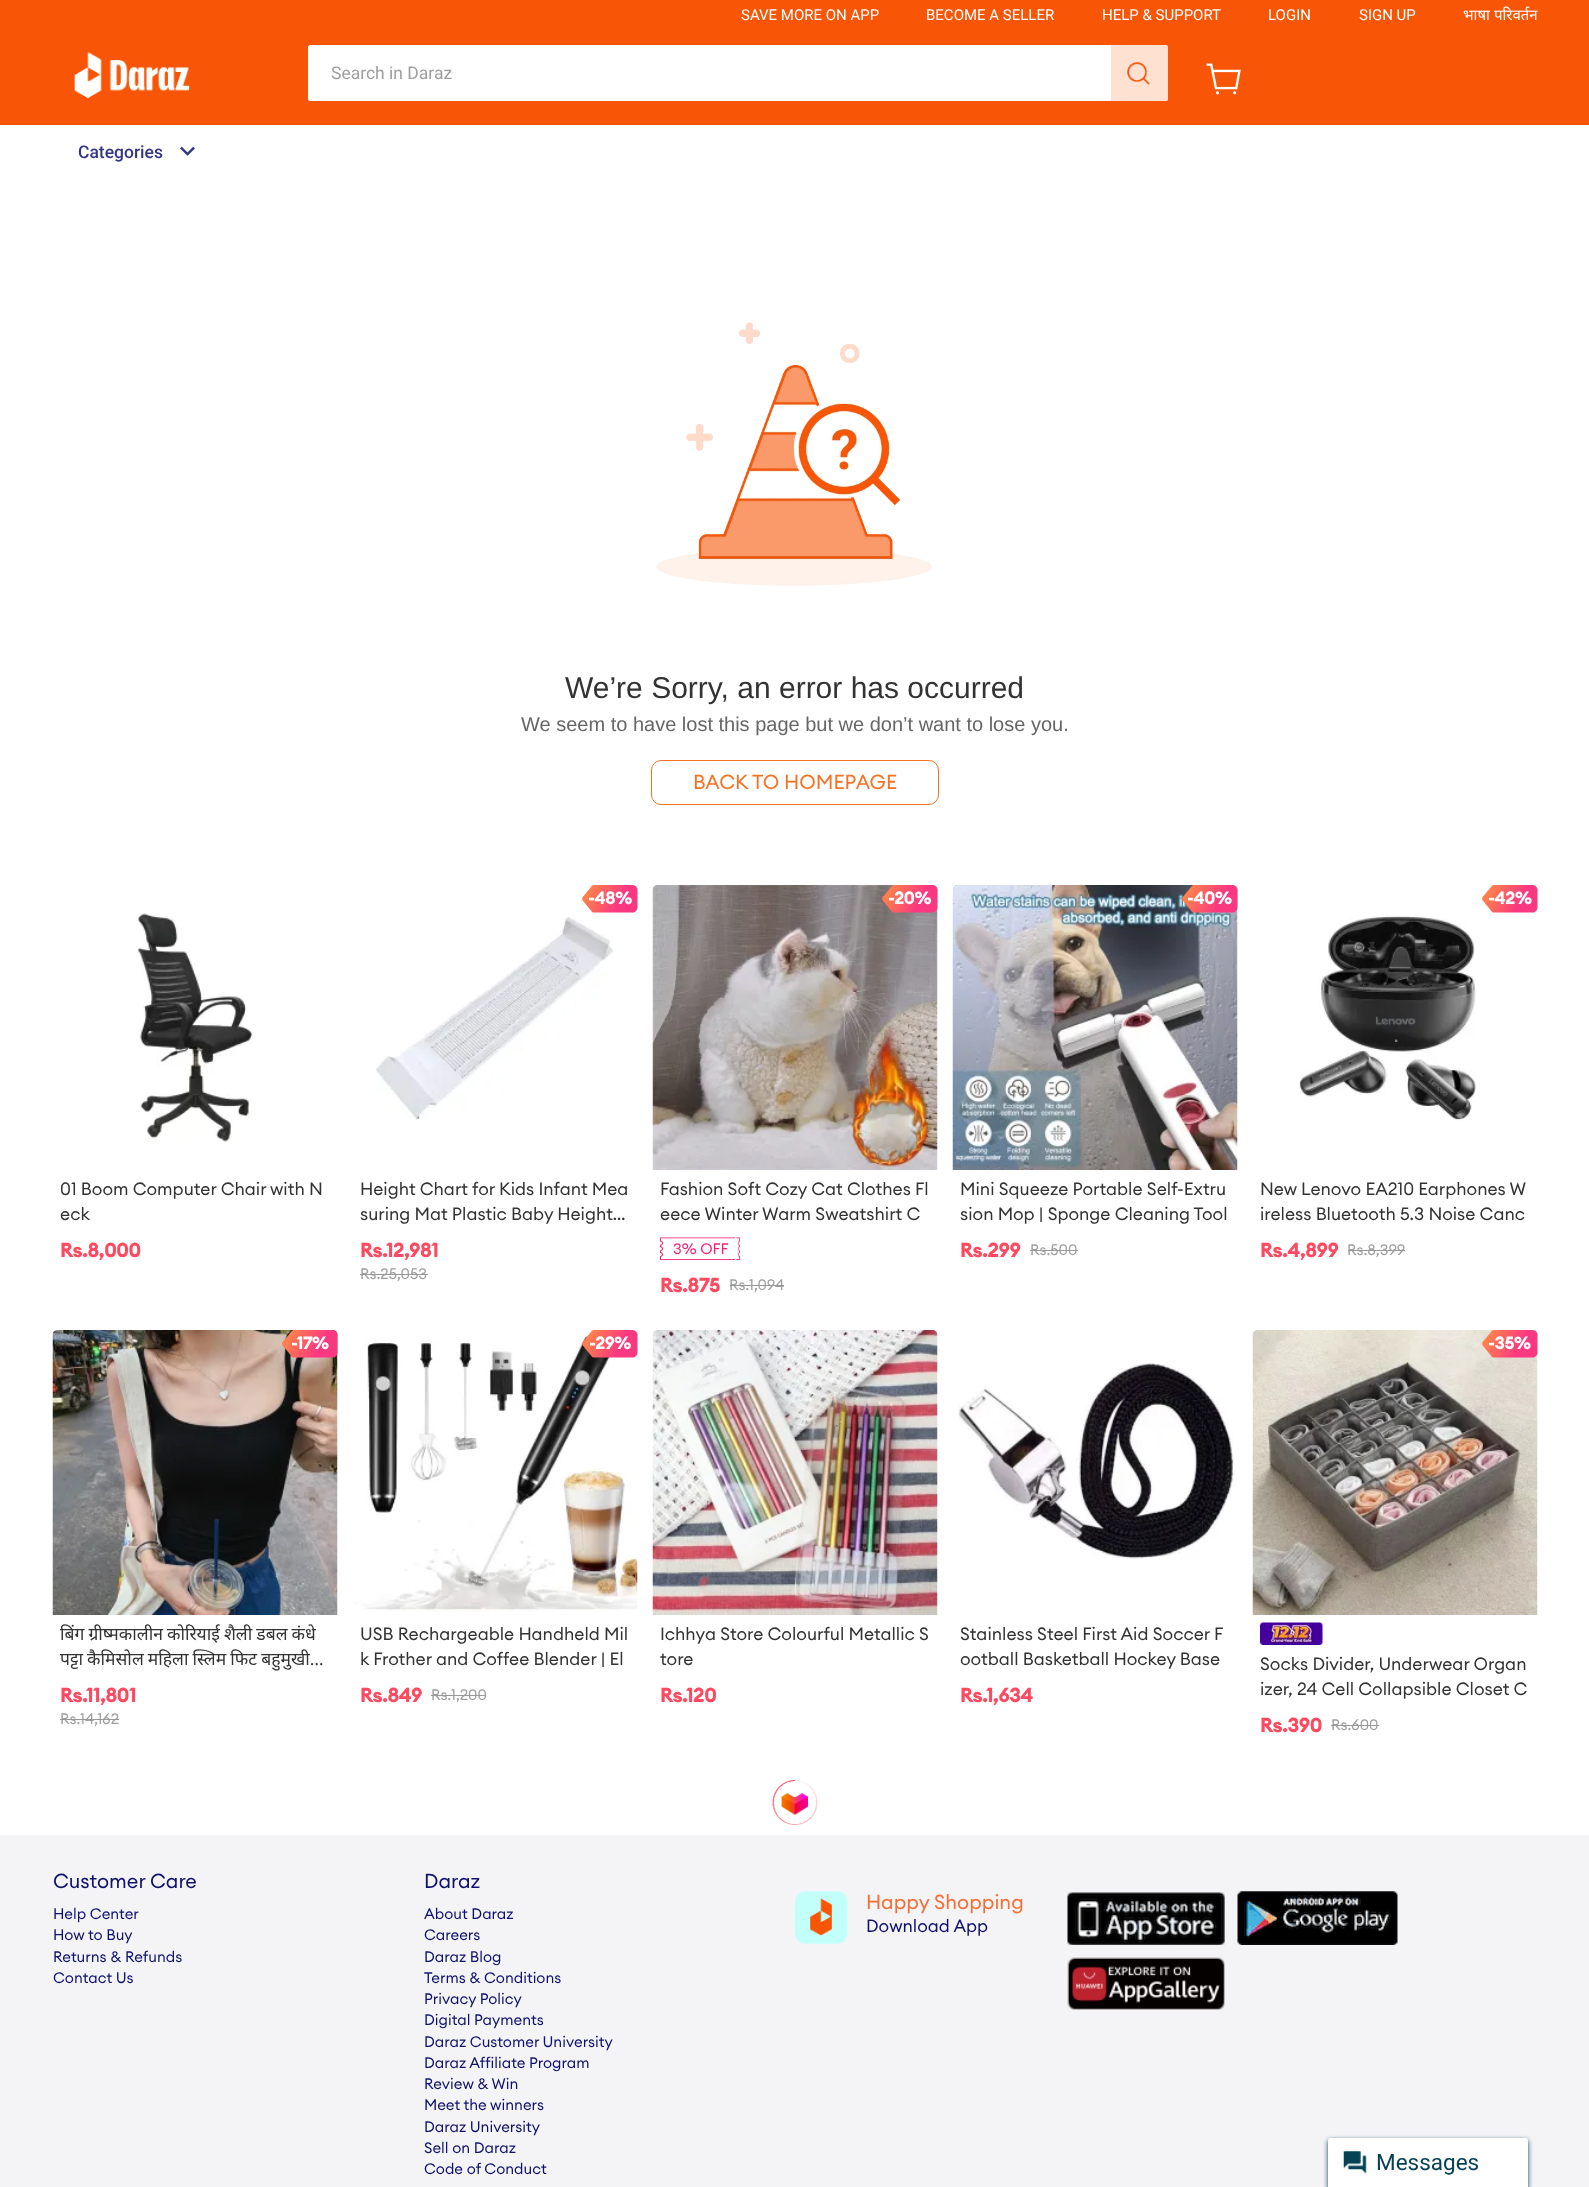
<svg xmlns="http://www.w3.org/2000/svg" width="1589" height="2187">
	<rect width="100%" height="100%" fill="#FFFFFF" />
	<rect x="0" y="0" width="1589" height="125" fill="#F85606" />
	<g font-family="Roboto" font-size="15" fill="#FFFFFF">
		<text x="741" y="20">SAVE MORE ON APP</text>
		<text x="926" y="20">BECOME A SELLER</text>
		<text x="1102" y="20">HELP &amp; SUPPORT</text>
		<text x="1268" y="20">LOGIN</text>
		<text x="1359" y="20">SIGN UP</text>
	</g>
	<text x="1463" y="20" font-family="Noto Sans" font-size="15" fill="#FFFFFF">भाषा परिवर्तन</text>
	<image x="74" y="52" width="116" height="47" href="assets/img1.png" />
	<rect x="308" y="45" width="860" height="56" rx="2.5" fill="#FFFFFF" />
	<text x="331" y="79" font-family="Roboto" font-size="17.5" fill="#9E9E9E">Search in Daraz</text>
	<path d="M1111 45H1165.5C1167 45 1168 46 1168 47.5V98.5C1168 100 1167 101 1165.5 101H1111Z" fill="#FFE1D2" />
	<image x="1127" y="62" width="23" height="23" href="assets/img2.png" />
	<image x="1206" y="63" width="35" height="32" href="assets/img3.png" />
	<text x="78" y="158" font-family="Roboto" font-size="17.5" font-weight="500" fill="#333683">Categories</text>
	<image x="180" y="146" width="15" height="10" href="assets/img4.png" />
	<image x="656" y="322" width="276" height="264" href="assets/img5.png" />
	<text x="565" y="698" font-family="Liberation Sans" font-size="30" fill="#333333">We’re Sorry, an error has occurred</text>
	<text x="521" y="731" font-family="Liberation Sans" font-size="20" fill="#666666">We seem to have lost this page but we don’t want to lose you.</text>
	<rect x="651.5" y="760.5" width="287" height="44" rx="9.5" fill="none" stroke="#F57224" />
	<text x="693" y="789" font-family="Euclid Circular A" font-size="20" fill="#F57224">BACK TO HOMEPAGE</text>
	<image x="137" y="913" width="116" height="229" href="assets/img6.png" />
	<g font-family="Euclid Circular A" font-size="17.5" fill="#333333">
		<text x="60" y="1195">01 Boom Computer Chair with N</text>
		<text x="60" y="1220">eck</text>
	</g>
	<text x="60" y="1257" font-family="Euclid Circular A" font-size="20" font-weight="700" letter-spacing="-0.5" fill="#FE4960">Rs.8,000</text>
	<image x="582" y="885" width="56" height="28" href="assets/img7.png" />
	<text x="588" y="904" font-family="Euclid Circular A" font-size="17.5" font-weight="700" letter-spacing="-0.5" fill="#FFFFFF">-48%</text>
	<image x="376" y="917" width="238" height="203" href="assets/img8.png" />
	<g font-family="Euclid Circular A" font-size="17.5" fill="#333333">
		<text x="360" y="1195">Height Chart for Kids Infant Mea</text>
		<text x="360" y="1220">suring Mat Plastic Baby Height…</text>
	</g>
	<g font-family="Euclid Circular A" font-size="20" font-weight="700" letter-spacing="-0.5" fill="#FE4960">
		<text x="360" y="1257">Rs.</text>
		<text x="386" y="1257">12,981</text>
	</g>
	<text x="360" y="1279" font-family="Euclid Circular A" font-size="15" fill="#9E9E9E">Rs.25,053</text>
	<rect x="360" y="1274" width="68" height="1" fill="#999999" />
	<image x="652" y="885" width="286" height="285" href="assets/img9.png" />
	<image x="882" y="885" width="56" height="28" href="assets/img10.png" />
	<text x="888" y="904" font-family="Euclid Circular A" font-size="17.5" font-weight="700" letter-spacing="-0.5" fill="#FFFFFF">-20%</text>
	<g font-family="Euclid Circular A" font-size="17.5" fill="#333333">
		<text x="660" y="1195">Fashion Soft Cozy Cat Clothes Fl</text>
		<text x="660" y="1220">eece Winter Warm Sweatshirt C</text>
	</g>
	<image x="660" y="1237" width="5" height="23" href="assets/img11.png" />
	<image x="665" y="1237" width="70" height="23" href="assets/img12.png" />
	<text x="673" y="1254" font-family="Euclid Circular A" font-size="15" fill="#F02576">3% OFF</text>
	<image x="736" y="1237" width="4" height="23" href="assets/img13.png" />
	<text x="660" y="1292" font-family="Euclid Circular A" font-size="20" font-weight="700" letter-spacing="-0.5" fill="#FE4960">Rs.875</text>
	<text x="729" y="1290" font-family="Euclid Circular A" font-size="15" fill="#9E9E9E">Rs.</text>
	<rect x="730" y="1285" width="19" height="1" fill="#999999" />
	<text x="749" y="1290" font-family="Euclid Circular A" font-size="15" fill="#9E9E9E">1,094</text>
	<rect x="749" y="1285" width="35" height="1" fill="#999999" />
	<image x="952" y="885" width="286" height="285" href="assets/img14.png" />
	<image x="1182" y="885" width="56" height="28" href="assets/img15.png" />
	<text x="1187" y="904" font-family="Euclid Circular A" font-size="17.5" font-weight="700" letter-spacing="-0.5" fill="#FFFFFF">-40%</text>
	<g font-family="Euclid Circular A" font-size="17.5" fill="#333333">
		<text x="960" y="1195">Mini Squeeze Portable Self-Extru</text>
		<text x="960" y="1220">sion Mop | Sponge Cleaning Tool</text>
	</g>
	<text x="960" y="1257" font-family="Euclid Circular A" font-size="20" font-weight="700" letter-spacing="-0.5" fill="#FE4960">Rs.299</text>
	<text x="1030" y="1255" font-family="Euclid Circular A" font-size="15" fill="#9E9E9E">Rs.500</text>
	<rect x="1030" y="1250" width="48" height="1" fill="#999999" />
	<image x="1482" y="885" width="56" height="28" href="assets/img7.png" />
	<text x="1488" y="904" font-family="Euclid Circular A" font-size="17.5" font-weight="700" letter-spacing="-0.5" fill="#FFFFFF">-42%</text>
	<image x="1299" y="914" width="177" height="207" href="assets/img16.png" />
	<g font-family="Euclid Circular A" font-size="17.5" fill="#333333">
		<text x="1260" y="1195">New Lenovo EA210 Earphones W</text>
		<text x="1260" y="1220">ireless Bluetooth 5.3 Noise Canc</text>
	</g>
	<text x="1260" y="1257" font-family="Euclid Circular A" font-size="20" font-weight="700" letter-spacing="-0.5" fill="#FE4960">Rs.4,899</text>
	<text x="1347" y="1255" font-family="Euclid Circular A" font-size="15" fill="#9E9E9E">Rs.8,399</text>
	<rect x="1348" y="1250" width="57" height="1" fill="#999999" />
	<image x="52" y="1330" width="286" height="285" href="assets/img17.png" />
	<image x="282" y="1330" width="56" height="28" href="assets/img18.png" />
	<text x="291" y="1349" font-family="Euclid Circular A" font-size="17.5" font-weight="700" letter-spacing="-0.5" fill="#FFFFFF">-17%</text>
	<g font-family="Noto Sans" font-size="17.5" fill="#333333">
		<text x="60" y="1640" word-spacing="-0.5">बिंग ग्रीष्मकालीन कोरियाई शैली डबल कंधे</text>
		<text x="60" y="1665" word-spacing="-0.5">पट्टा कैमिसोल महिला स्लिम फिट बहुमुखी…</text>
	</g>
	<g font-family="Euclid Circular A" font-size="20" font-weight="700" letter-spacing="-0.5" fill="#FE4960">
		<text x="60" y="1702">Rs.</text>
		<text x="86" y="1702">11,801</text>
	</g>
	<text x="60" y="1724" font-family="Euclid Circular A" font-size="15" fill="#9E9E9E">Rs.</text>
	<rect x="60" y="1719" width="20" height="1" fill="#999999" />
	<text x="80" y="1724" font-family="Euclid Circular A" font-size="15" fill="#9E9E9E">14,162</text>
	<rect x="80" y="1719" width="39" height="1" fill="#999999" />
	<image x="353" y="1335" width="285" height="277" href="assets/img19.png" />
	<image x="582" y="1330" width="56" height="28" href="assets/img20.png" />
	<text x="589" y="1349" font-family="Euclid Circular A" font-size="17.5" font-weight="700" letter-spacing="-0.5" fill="#FFFFFF">-29%</text>
	<g font-family="Euclid Circular A" font-size="17.5" fill="#333333">
		<text x="360" y="1640">USB Rechargeable Handheld Mil</text>
		<text x="360" y="1665">k Frother and Coffee Blender | El</text>
	</g>
	<text x="360" y="1702" font-family="Euclid Circular A" font-size="20" font-weight="700" letter-spacing="-0.5" fill="#FE4960">Rs.849</text>
	<text x="431" y="1700" font-family="Euclid Circular A" font-size="15" fill="#9E9E9E">Rs.</text>
	<rect x="431" y="1695" width="20" height="1" fill="#999999" />
	<text x="451" y="1700" font-family="Euclid Circular A" font-size="15" fill="#9E9E9E">1,200</text>
	<rect x="451" y="1695" width="35" height="1" fill="#999999" />
	<image x="652" y="1330" width="286" height="285" href="assets/img21.png" />
	<g font-family="Euclid Circular A" font-size="17.5" fill="#333333">
		<text x="660" y="1640">Ichhya Store Colourful Metallic S</text>
		<text x="660" y="1665">tore</text>
	</g>
	<g font-family="Euclid Circular A" font-size="20" font-weight="700" letter-spacing="-0.5" fill="#FE4960">
		<text x="660" y="1702">Rs.</text>
		<text x="686" y="1702">120</text>
	</g>
	<image x="958" y="1363" width="278" height="196" href="assets/img22.png" />
	<g font-family="Euclid Circular A" font-size="17.5" fill="#333333">
		<text x="960" y="1640">Stainless Steel First Aid Soccer F</text>
		<text x="960" y="1665">ootball Basketball Hockey Base</text>
	</g>
	<g font-family="Euclid Circular A" font-size="20" font-weight="700" letter-spacing="-0.5" fill="#FE4960">
		<text x="960" y="1702">Rs.</text>
		<text x="986" y="1702">1,634</text>
	</g>
	<image x="1252" y="1330" width="286" height="285" href="assets/img23.png" />
	<image x="1482" y="1330" width="56" height="28" href="assets/img24.png" />
	<text x="1488" y="1349" font-family="Euclid Circular A" font-size="17.5" font-weight="700" letter-spacing="-0.5" fill="#FFFFFF">-35%</text>
	<image x="1260" y="1622" width="63" height="23" href="assets/img25.png" />
	<g font-family="Euclid Circular A" font-size="17.5" fill="#333333">
		<text x="1260" y="1670">Socks Divider, Underwear Organ</text>
		<text x="1260" y="1695">izer, 24 Cell Collapsible Closet C</text>
	</g>
	<text x="1260" y="1732" font-family="Euclid Circular A" font-size="20" font-weight="700" letter-spacing="-0.5" fill="#FE4960">Rs.390</text>
	<text x="1331" y="1730" font-family="Euclid Circular A" font-size="15" fill="#9E9E9E">Rs.600</text>
	<rect x="1331" y="1725" width="48" height="1" fill="#999999" />
	<image x="772" y="1780" width="46" height="45" href="assets/img26.png" />
	<rect x="774" y="1781" width="42" height="43" rx="21" fill="#FFFFFF" />
	<image x="781" y="1793" width="27" height="22" href="assets/img27.png" />
	<rect x="0" y="1835" width="1589" height="352" fill="#F4F4F6" />
	<text x="53" y="1888" font-family="Euclid Circular A" font-size="20" fill="#0F136D">Customer Care</text>
	<g font-family="Euclid Circular A" font-size="15" fill="#0F136D">
		<text x="53" y="1919">Help Center</text>
		<text x="53" y="1940">How to Buy</text>
		<text x="53" y="1962">Returns &amp; Refunds</text>
		<text x="53" y="1983">Contact Us</text>
	</g>
	<text x="424" y="1888" font-family="Euclid Circular A" font-size="20" fill="#0F136D">Daraz</text>
	<g font-family="Euclid Circular A" font-size="15" fill="#0F136D">
		<text x="424" y="1919">About Daraz</text>
		<text x="424" y="1940">Careers</text>
		<text x="424" y="1962">Daraz Blog</text>
		<text x="424" y="1983">Terms &amp; Conditions</text>
		<text x="424" y="2004">Privacy Policy</text>
		<text x="424" y="2025">Digital Payments</text>
		<text x="424" y="2047">Daraz Customer University</text>
		<text x="424" y="2068">Daraz Affiliate Program</text>
		<text x="424" y="2089">Review &amp; Win</text>
		<text x="424" y="2110">Meet the winners</text>
		<text x="424" y="2132">Daraz University</text>
		<text x="424" y="2153">Sell on Daraz</text>
		<text x="424" y="2174">Code of Conduct</text>
	</g>
	<image x="795" y="1891" width="53" height="53" href="assets/img28.png" />
	<text x="866" y="1909" font-family="Euclid Circular A" font-size="20" fill="#F36F36">Happy Shopping</text>
	<text x="866" y="1932" font-family="Euclid Circular A" font-size="17.5" fill="#0F136D">Download App</text>
	<image x="1067" y="1892" width="158" height="53" href="assets/img29.png" />
	<image x="1237" y="1891" width="161" height="54" href="assets/img30.png" />
	<image x="1067" y="1957" width="158" height="53" href="assets/img31.png" />
	<rect x="1328" y="2140" width="200" height="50" rx="2.5" fill="#003E52" filter="blur(2.5px)" />
	<path d="M1330.5 2138H1525.5C1527 2138 1528 2139 1528 2140.5V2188H1328V2140.5C1328 2139 1329 2138 1330.5 2138Z" fill="#FFFFFF" />
	<image x="1343" y="2151" width="24" height="23" href="assets/img32.png" />
	<text x="1376" y="2170" font-family="Roboto" font-size="22.5" fill="#044254">Messages</text>
</svg>
